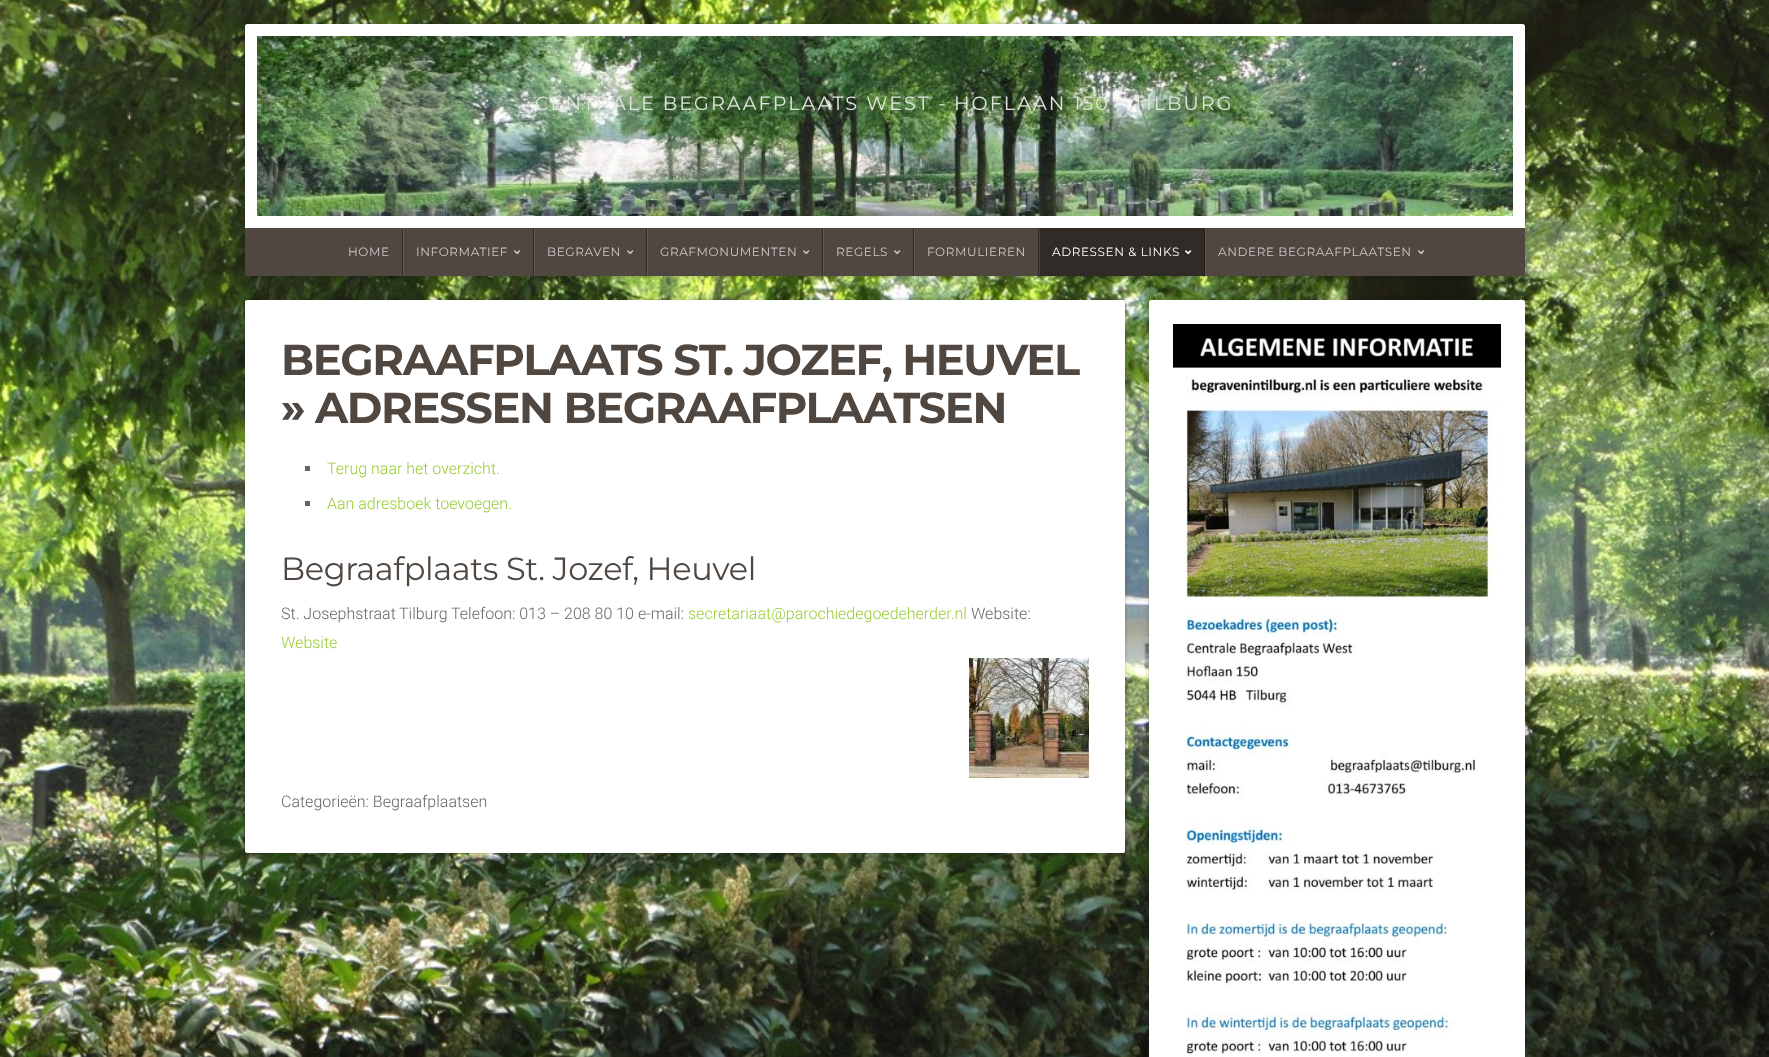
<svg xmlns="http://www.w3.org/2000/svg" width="1769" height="1057">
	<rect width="100%" height="100%" fill="#FFFFFF" />
	<image x="0" y="0" width="1769" height="1057" href="assets/img1.png" />
	<rect x="245" y="24" width="1280" height="252" rx="2" fill="#000000" fill-opacity="0.24" filter="blur(2px)" />
	<path d="M247 24H1523C1524 24 1525 25 1525 26V228H245V26C245 25 246 24 247 24Z" fill="#FFFFFF" />
	<image x="257" y="36" width="1256" height="180" href="assets/img2.png" />
	<text x="535" y="110" font-family="Montserrat" font-size="19.2" letter-spacing="2" fill="#DFE5DD">CENTRALE BEGRAAFPLAATS WEST</text>
	<text x="938" y="110" font-family="Montserrat" font-size="19.2" letter-spacing="2" fill="#D9E1D5">-</text>
	<text x="954" y="110" font-family="Montserrat" font-size="19.2" letter-spacing="2" fill="#DFE5DD">HOFLAAN 150</text>
	<text x="1117" y="110" font-family="Montserrat" font-size="19.2" letter-spacing="2" fill="#F7F9F9">-</text>
	<text x="1133" y="110" font-family="Montserrat" font-size="19.2" letter-spacing="2" fill="#DFE5DD">TILBURG</text>
	<path d="M245 228H1525V274C1525 275 1524 276 1523 276H247C246 276 245 275 245 274Z" fill="#504741" />
	<rect x="402" y="229" width="1" height="47" fill="#302B27" />
	<text x="348" y="256" font-family="Montserrat" font-size="12" letter-spacing="0.6" fill="#CBC8C6">HOME</text>
	<rect x="533" y="228" width="1" height="48" fill="#302B27" />
	<rect x="403" y="228" width="1" height="48" fill="#625954" />
	<text x="416" y="256" font-family="Montserrat" font-size="12" letter-spacing="0.6" fill="#CBC8C6">INFORMATIEF</text>
	<image x="514" y="250" width="7" height="5" href="assets/img3.png" />
	<rect x="646" y="228" width="1" height="48" fill="#302B27" />
	<rect x="534" y="228" width="1" height="48" fill="#625954" />
	<text x="547" y="256" font-family="Montserrat" font-size="12" letter-spacing="0.6" fill="#CBC8C6">BEGRAVEN</text>
	<image x="627" y="250" width="7" height="5" href="assets/img3.png" />
	<rect x="822" y="228" width="1" height="48" fill="#302B27" />
	<rect x="647" y="228" width="1" height="48" fill="#625954" />
	<text x="660" y="256" font-family="Montserrat" font-size="12" letter-spacing="0.6" fill="#CBC8C6">GRAFMONUMENTEN</text>
	<image x="803" y="250" width="7" height="5" href="assets/img3.png" />
	<rect x="913" y="228" width="1" height="48" fill="#302B27" />
	<rect x="823" y="228" width="1" height="48" fill="#625954" />
	<text x="836" y="256" font-family="Montserrat" font-size="12" letter-spacing="0.6" fill="#CBC8C6">REGELS</text>
	<image x="894" y="250" width="7" height="5" href="assets/img3.png" />
	<rect x="1038" y="228" width="1" height="48" fill="#302B27" />
	<rect x="914" y="228" width="1" height="48" fill="#625954" />
	<text x="927" y="256" font-family="Montserrat" font-size="12" letter-spacing="0.6" fill="#CBC8C6">FORMULIEREN</text>
	<rect x="1040" y="228" width="164" height="48" fill="#302B27" />
	<rect x="1204" y="228" width="1" height="48" fill="#1D1A17" />
	<rect x="1039" y="228" width="1" height="48" fill="#45403D" />
	<text x="1052" y="256" font-family="Montserrat" font-size="12" letter-spacing="0.6" fill="#FFFFFF">ADRESSEN &amp; LINKS</text>
	<image x="1185" y="250" width="7" height="5" href="assets/img4.png" />
	<rect x="1205" y="228" width="1" height="48" fill="#625954" />
	<text x="1218" y="256" font-family="Montserrat" font-size="12" letter-spacing="0.6" fill="#CBC8C6">ANDERE BEGRAAFPLAATSEN</text>
	<image x="1418" y="250" width="7" height="5" href="assets/img3.png" />
	<rect x="245" y="300" width="880" height="553" rx="2" fill="#000000" fill-opacity="0.24" filter="blur(2px)" />
	<rect x="245" y="300" width="880" height="553" rx="2" fill="#FFFFFF" />
	<g font-family="Montserrat" font-size="43.25" font-weight="700" letter-spacing="-1.4" fill="#504741">
		<text x="281" y="375">BEGRAAFPLAATS ST. JOZEF, HEUVEL</text>
		<text x="281" y="423">» ADRESSEN BEGRAAFPLAATSEN</text>
	</g>
	<rect x="305" y="466" width="5" height="5" fill="#666666" />
	<text x="327" y="474" font-family="Roboto" font-size="16" font-weight="300" fill="#99CC33">Terug naar het overzicht.</text>
	<rect x="305" y="501" width="5" height="5" fill="#666666" />
	<text x="327" y="509" font-family="Roboto" font-size="16" font-weight="300" fill="#99CC33">Aan adresboek toevoegen.</text>
	<text x="281" y="580" font-family="Montserrat" font-size="32" letter-spacing="-0.4" fill="#504741">Begraafplaats St. Jozef, Heuvel</text>
	<g font-family="Roboto" font-size="16" font-weight="300" fill="#666666">
		<text x="281" y="619">St. Josephstraat</text>
		<text x="399" y="619">Tilburg</text>
		<text x="451" y="619">Telefoon: 013 – 208 80 10 e-mail:</text>
	</g>
	<text x="688" y="619" font-family="Roboto" font-size="16" font-weight="300" fill="#99CC33">secretariaat@parochiedegoedeherder.nl</text>
	<text x="971" y="619" font-family="Roboto" font-size="16" font-weight="300" fill="#666666">Website:</text>
	<text x="281" y="648" font-family="Roboto" font-size="16" font-weight="300" fill="#99CC33">Website</text>
	<image x="969" y="658" width="120" height="120" href="assets/img5.png" />
	<text x="281" y="807" font-family="Roboto" font-size="16" font-weight="300" fill="#666666">Categorieën: Begraafplaatsen</text>
	<rect x="1149" y="300" width="376" height="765" rx="2" fill="#000000" fill-opacity="0.24" filter="blur(2px)" />
	<rect x="1149" y="300" width="376" height="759" rx="2" fill="#FFFFFF" />
	<image x="1173" y="324" width="328" height="733" href="assets/img6.png" />
</svg>
